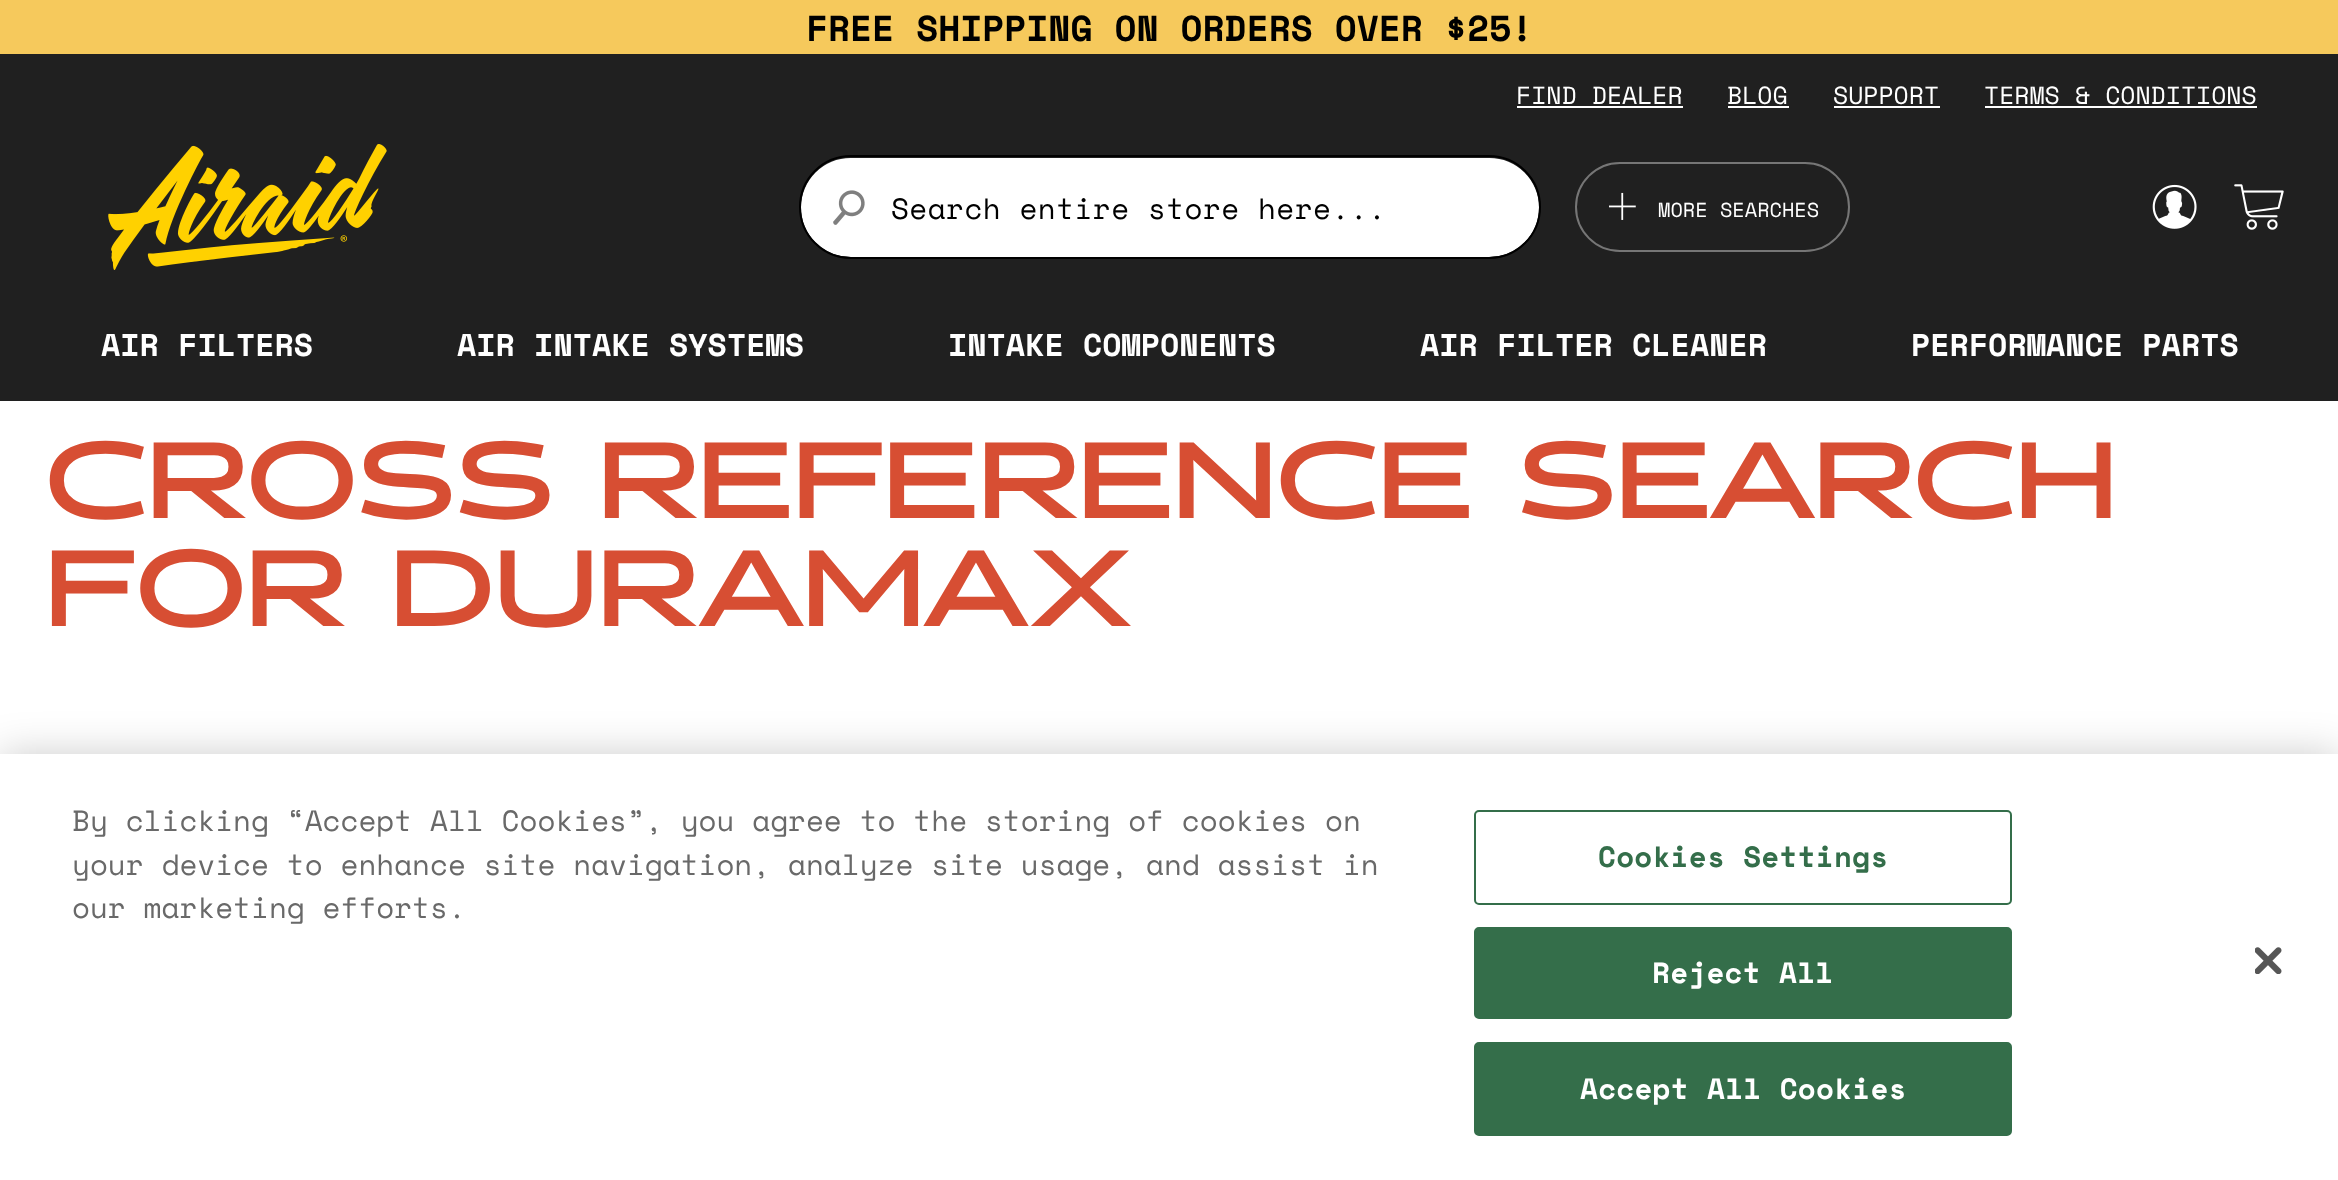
<svg xmlns="http://www.w3.org/2000/svg" width="2338" height="1180">
	<rect width="100%" height="100%" fill="#FFFFFF" />
	<rect x="0" y="0" width="2338" height="54" fill="#F6C95C" />
	<text x="806" y="41" font-family="Space Mono" font-size="36" font-weight="700" fill="#000000">FREE SHIPPING ON ORDERS OVER $25!</text>
	<rect x="0" y="54" width="2338" height="347" fill="#202020" />
	<text x="1516" y="104" font-family="Space Mono" font-size="24.75" fill="#FFFFFF">FIND DEALER</text>
	<rect x="1517" y="106" width="166" height="2" fill="#FFFFFF" />
	<text x="1727" y="104" font-family="Space Mono" font-size="24.75" fill="#FFFFFF">BLOG</text>
	<rect x="1728" y="106" width="61" height="2" fill="#FFFFFF" />
	<text x="1833" y="104" font-family="Space Mono" font-size="24.75" fill="#FFFFFF">SUPPORT</text>
	<rect x="1834" y="106" width="106" height="2" fill="#FFFFFF" />
	<text x="1984" y="104" font-family="Space Mono" font-size="24.75" fill="#FFFFFF">TERMS &amp; CONDITIONS</text>
	<rect x="1985" y="106" width="272" height="2" fill="#FFFFFF" />
	<image x="108" y="144" width="279" height="126" href="assets/img1.png" />
	<rect x="801" y="158" width="738" height="99" rx="49.5" fill="#FFFFFF" />
	<rect x="800" y="156" width="740" height="102" rx="51" fill="none" stroke="#000000" stroke-width="2" />
	<image x="833" y="190" width="32" height="35" href="assets/img2.png" />
	<text x="891" y="219" font-family="Space Mono" font-size="29.25" letter-spacing="0.45" fill="#000000">Search entire store here...</text>
	<rect x="1576" y="163" width="273" height="88" rx="44" fill="none" stroke="#767676" stroke-width="2" />
	<image x="1609" y="192" width="27" height="28" href="assets/img3.png" />
	<text x="1658" y="217" font-family="Space Mono" font-size="20.25" fill="#FFFFFF">MORE SEARCHES</text>
	<image x="2152" y="184" width="45" height="45" href="assets/img4.png" />
	<image x="2234" y="184" width="50" height="46" href="assets/img5.png" />
	<g font-family="Space Mono" font-size="31.5" font-weight="700" fill="#FFFFFF">
		<text x="101" y="356">AIR FILTERS</text>
		<text x="457" y="356">AIR INTAKE SYSTEMS</text>
		<text x="948" y="356">INTAKE COMPONENTS</text>
		<text x="1420" y="356">AIR FILTER CLEANER</text>
		<text x="1911" y="356">PERFORMANCE PARTS</text>
	</g>
	<g font-family="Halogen" font-size="108" font-weight="700" letter-spacing="-0.9" fill="#D74E33">
		<text x="45" y="518">CROSS REFERENCE SEARCH</text>
		<text x="45" y="626">FOR DURAMAX</text>
	</g>
	<rect x="0" y="754" width="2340" height="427" fill="#000000" fill-opacity="0.2" filter="blur(20px)" />
	<rect x="0" y="754" width="2338" height="426" fill="#FFFFFF" />
	<g font-family="Space Mono" font-size="29.25" fill="#696969">
		<text x="72" y="831">By clicking “Accept All Cookies”, you agree to the storing of cookies on</text>
		<text x="72" y="875">your device to enhance site navigation, analyze site usage, and assist in</text>
		<text x="72" y="918">our marketing efforts.</text>
	</g>
	<rect x="1475" y="811" width="536" height="93" rx="4" fill="none" stroke="#346E4A" stroke-width="2" />
	<text x="1598" y="867" font-family="Space Mono" font-size="29.25" font-weight="700" letter-spacing="0.25" fill="#346E4A">Cookies Settings</text>
	<rect x="1475" y="928" width="536" height="90" rx="4" fill="#346E4A" stroke="#346E4A" stroke-width="2" />
	<text x="1652" y="983" font-family="Space Mono" font-size="29.25" font-weight="700" letter-spacing="0.25" fill="#FFFFFF">Reject All</text>
	<rect x="1475" y="1043" width="536" height="92" rx="4" fill="#346E4A" stroke="#346E4A" stroke-width="2" />
	<text x="1580" y="1099" font-family="Space Mono" font-size="29.25" font-weight="700" letter-spacing="0.25" fill="#FFFFFF">Accept All Cookies</text>
	<image x="2255" y="947" width="27" height="27" href="assets/img6.png" />
</svg>
